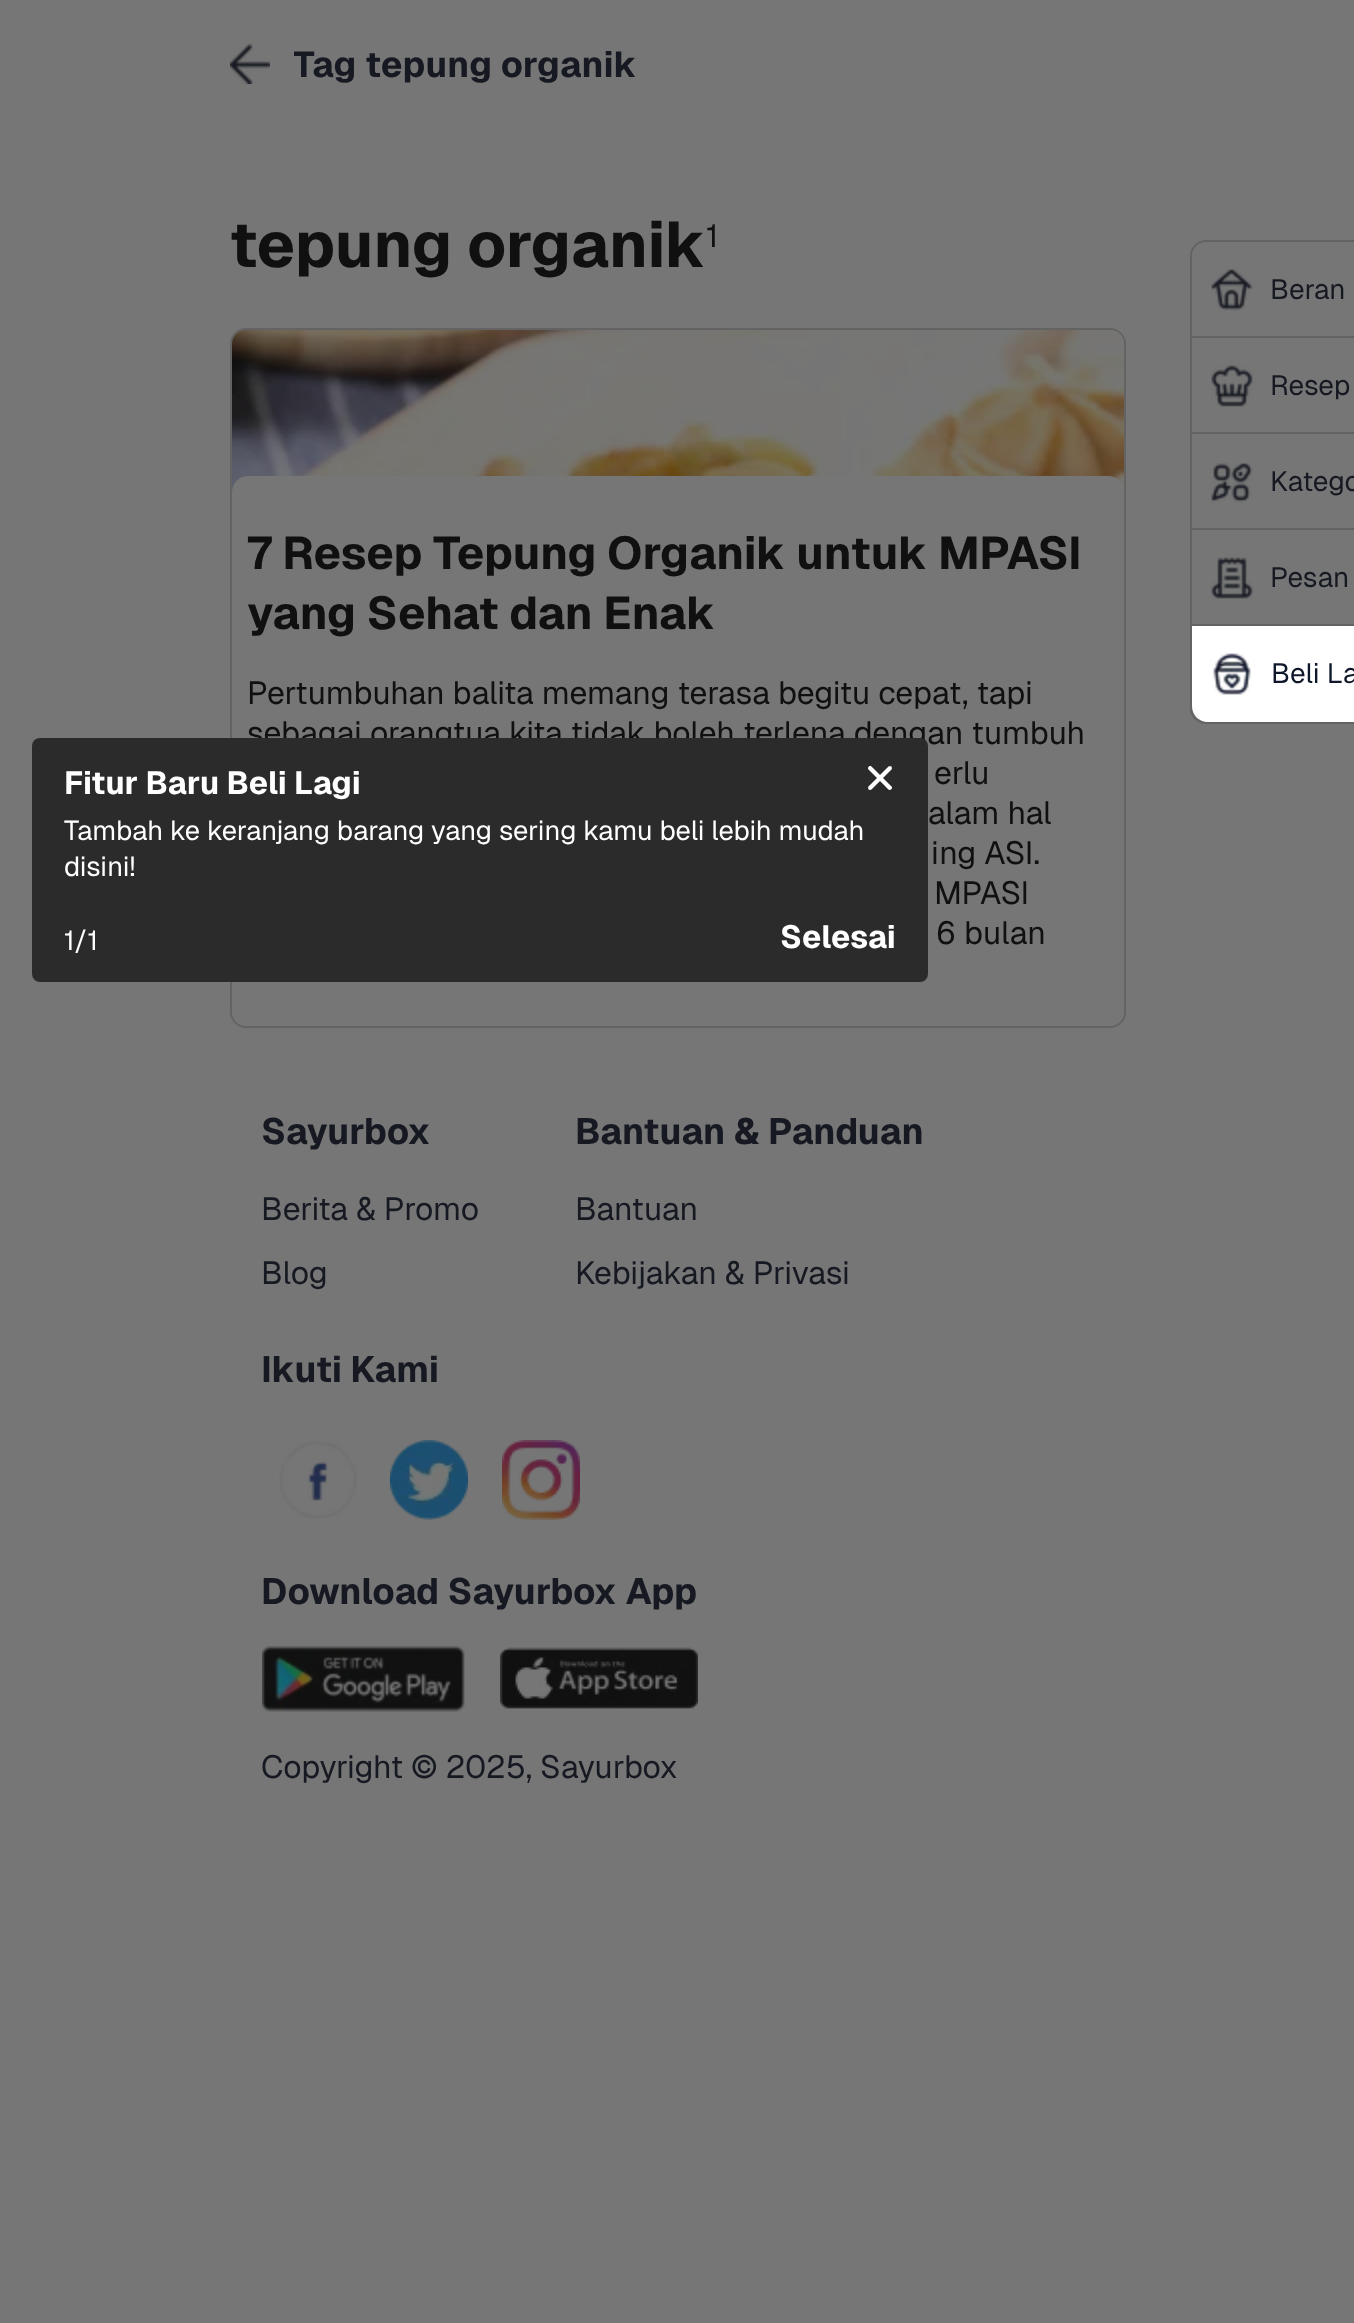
<svg xmlns="http://www.w3.org/2000/svg" width="1354" height="2323">
	<defs>
		<clipPath id="clip1"><rect x="294" y="38" width="832" height="54" /></clipPath>
	</defs>
	<rect width="100%" height="100%" fill="#767676" />
	<image x="230" y="44" width="40" height="40" href="assets/img1.png" />
	<g clip-path="url(#clip1)">
		<text x="293" y="77" font-family="Geist" font-size="36" font-weight="700" letter-spacing="0.25" fill="#161921">Tag tepung organik</text>
	</g>
	<text x="229" y="267" font-family="Geist" font-size="64" font-weight="700" fill="#101010">tepung organik</text>
	<text x="706" y="247" font-family="Geist" font-size="32" fill="#101010">1</text>
	<rect x="231" y="329" width="894" height="698" rx="15" fill="none" stroke="#636363" stroke-width="2" />
	<image x="232" y="330" width="892" height="162" href="assets/img2.png" />
	<path d="M248 476H1108C1117 476 1124 483 1124 492V1012C1124 1019.5 1117.5 1026 1110 1026H246C238.5 1026 232 1019.5 232 1012V492C232 483 239 476 248 476Z" fill="#767676" />
	<g font-family="Geist" font-size="45.75" font-weight="700" fill="#101010">
		<text x="247" y="569">7 Resep Tepung Organik untuk MPASI</text>
		<text x="247" y="629">yang Sehat dan Enak</text>
	</g>
	<g font-family="Geist" font-size="32" fill="#101010">
		<text x="247" y="704">Pertumbuhan balita memang terasa begitu cepat, tapi</text>
		<text x="247" y="744">sebagai orangtua kita tidak boleh terlena dengan tumbuh</text>
		<text x="934" y="784">erlu</text>
		<text x="928" y="824">alam hal</text>
		<text x="931" y="864">ing ASI.</text>
		<text x="934" y="904">MPASI</text>
		<text x="936" y="944">6 bulan</text>
	</g>
	<text x="261" y="1144" font-family="Geist" font-size="36.5" font-weight="700" fill="#161921">Sayurbox</text>
	<g font-family="Geist" font-size="32" fill="#161921">
		<text x="261" y="1220">Berita &amp; Promo</text>
		<text x="261" y="1284">Blog</text>
	</g>
	<text x="575" y="1144" font-family="Geist" font-size="36.5" font-weight="700" fill="#161921">Bantuan &amp; Panduan</text>
	<g font-family="Geist" font-size="32" fill="#161921">
		<text x="575" y="1220">Bantuan</text>
		<text x="575" y="1284">Kebijakan &amp; Privasi</text>
	</g>
	<text x="261" y="1382" font-family="Geist" font-size="36.5" font-weight="700" fill="#161921">Ikuti Kami</text>
	<image x="279" y="1441" width="78" height="78" href="assets/img3.png" />
	<image x="390" y="1440" width="78" height="80" href="assets/img4.png" />
	<image x="502" y="1440" width="78" height="80" href="assets/img5.png" />
	<text x="261" y="1604" font-family="Geist" font-size="36.5" font-weight="700" fill="#161921">Download Sayurbox App</text>
	<image x="262" y="1646" width="203" height="66" href="assets/img6.png" />
	<image x="500" y="1647" width="198" height="62" href="assets/img7.png" />
	<text x="261" y="1778" font-family="Geist" font-size="32" fill="#161921">Copyright © 2025, Sayurbox</text>
	<rect x="1191" y="241" width="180" height="482" rx="15" fill="none" stroke="#636363" stroke-width="2" />
	<rect x="1192" y="336" width="162" height="2" fill="#636363" />
	<image x="1211" y="269" width="42" height="42" href="assets/img8.png" />
	<text x="1270" y="299" font-family="Geist" font-size="28" fill="#161921">Beran</text>
	<rect x="1192" y="432" width="162" height="2" fill="#636363" />
	<image x="1211" y="365" width="42" height="42" href="assets/img9.png" />
	<text x="1270" y="395" font-family="Geist" font-size="28" fill="#161921">Resep</text>
	<rect x="1192" y="528" width="162" height="2" fill="#636363" />
	<image x="1211" y="463" width="42" height="40" href="assets/img10.png" />
	<text x="1270" y="491" font-family="Geist" font-size="28" fill="#161921">Katego</text>
	<rect x="1192" y="624" width="162" height="2" fill="#636363" />
	<image x="1211" y="557" width="42" height="42" href="assets/img11.png" />
	<text x="1270" y="587" font-family="Geist" font-size="28" fill="#161921">Pesan</text>
	<path d="M1192 626H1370V706C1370 715 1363 722 1354 722H1208C1199 722 1192 715 1192 706Z" fill="#FFFFFF" />
	<image x="1213" y="653" width="38" height="42" href="assets/img12.png" />
	<text x="1271" y="683" font-family="Geist" font-size="28" fill="#0F172A">Beli La</text>
	<rect x="32" y="738" width="896" height="244" rx="8" fill="#2B2B2B" />
	<text x="64" y="794" font-family="Geist" font-size="32" font-weight="700" fill="#FFFFFF">Fitur Baru Beli Lagi</text>
	<path d="M871.5 766.5L892 787C892.5 788.5 891 790 889.5 790C888 789.5 885 786 885 786L868.5 769.5C867 767.5 869.5 765 871.5 766.5Z" fill="#FFFFFF" />
	<path d="M891.5 766.5C892 767.5 892 768.5 891.5 769.5L871.5 789.5C870.5 790 869.5 790 868.5 789.5C868 788.5 868 787.5 868.5 786.5L888.5 766.5C889.5 766 890.5 766 891.5 766.5Z" fill="#FFFFFF" />
	<g font-family="Geist" font-size="27.4" fill="#FFFFFF">
		<text x="64" y="840">Tambah ke keranjang barang yang sering kamu beli lebih mudah</text>
		<text x="64" y="876">disini!</text>
		<text x="64" y="950">1/1</text>
	</g>
	<text x="780" y="948" font-family="Geist" font-size="32" font-weight="700" fill="#FFFFFF">Selesai</text>
</svg>
